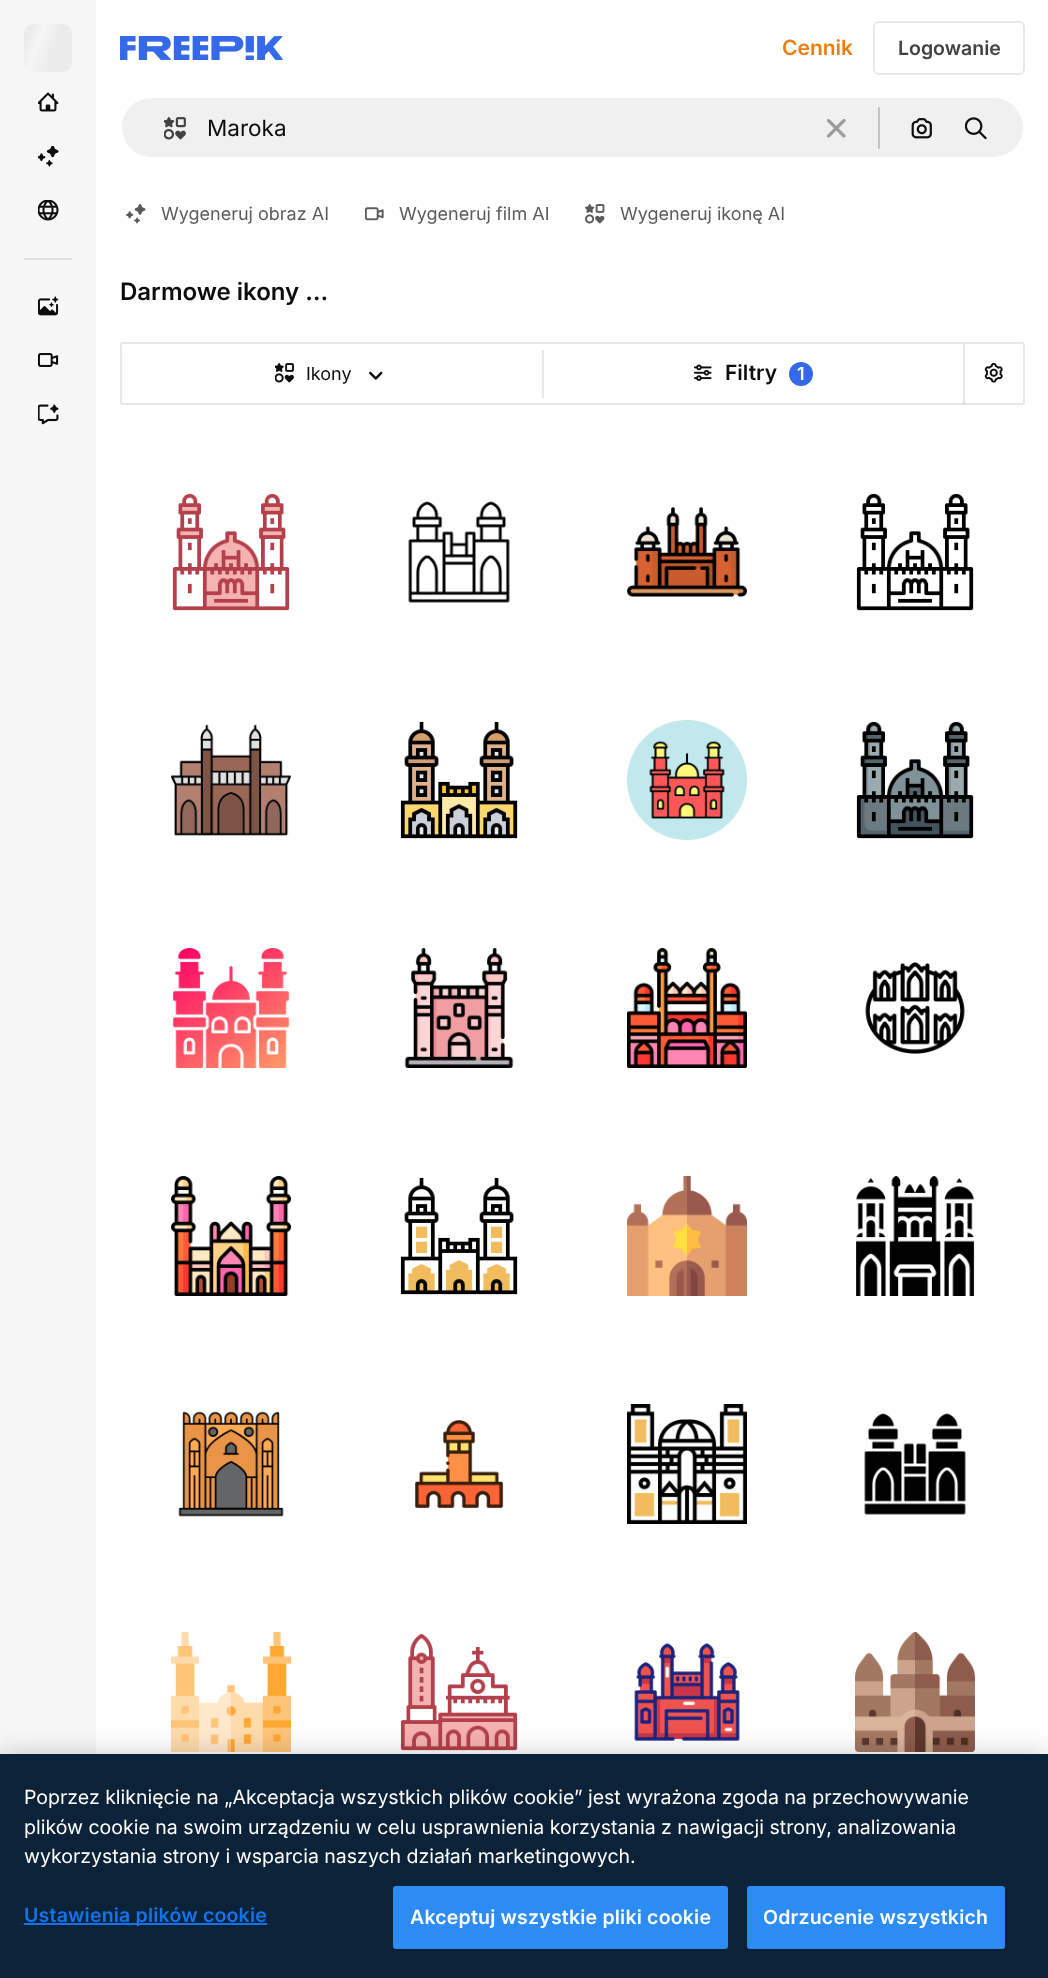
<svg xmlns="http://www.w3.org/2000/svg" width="1048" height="1978">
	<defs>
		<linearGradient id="g1" gradientUnits="userSpaceOnUse" x1="22" y1="30" x2="122" y2="66"><stop offset="0.08" stop-color="#ECECEC" /><stop offset="0.18" stop-color="#F5F5F5" /><stop offset="0.33" stop-color="#ECECEC" /></linearGradient>
	</defs>
	<rect width="100%" height="100%" fill="#FFFFFF" />
	<rect x="0" y="0" width="96" height="1754" fill="#F7F7F7" />
	<rect x="24" y="24" width="48" height="48" rx="9" fill="url(#g1)" />
	<image x="38" y="92" width="21" height="20" href="assets/img1.png" />
	<image x="38" y="146" width="21" height="21" href="assets/img2.png" />
	<image x="38" y="200" width="21" height="21" href="assets/img3.png" />
	<rect x="24" y="258" width="48" height="2" fill="#E0E0E0" />
	<image x="38" y="296" width="21" height="20" href="assets/img4.png" />
	<image x="38" y="353" width="21" height="14" href="assets/img5.png" />
	<image x="38" y="404" width="21" height="21" href="assets/img6.png" />
	<image x="120" y="36" width="163" height="24" href="assets/img7.png" />
	<text x="782" y="55" font-family="Inter" font-size="21" font-weight="600" fill="#EA7E11">Cennik</text>
	<rect x="874" y="22" width="150" height="52" rx="5" fill="none" stroke="#E7E7E7" stroke-width="2" />
	<text x="898" y="55" font-family="Inter" font-size="19.5" font-weight="600" fill="#424242">Logowanie</text>
	<rect x="121" y="97" width="903" height="61" rx="30.5" fill="#F0F0F0" stroke="#FFFFFF" stroke-width="2" />
	<image x="164" y="117" width="22" height="23" href="assets/img8.png" />
	<text x="207" y="136" font-family="Inter" font-size="22.5" fill="#0D0D0D">Maroka</text>
	<image x="827" y="119" width="19" height="19" href="assets/img9.png" />
	<rect x="878" y="107" width="2" height="42" fill="#C3C3C3" />
	<image x="911" y="118" width="21" height="21" href="assets/img10.png" />
	<image x="965" y="117" width="22" height="23" href="assets/img11.png" />
	<image x="126" y="204" width="20" height="20" href="assets/img12.png" />
	<text x="161" y="220" font-family="Inter" font-size="18" fill="#5B5B5B">Wygeneruj obraz AI</text>
	<image x="365" y="207" width="19" height="14" href="assets/img13.png" />
	<text x="399" y="220" font-family="Inter" font-size="18" fill="#5B5B5B">Wygeneruj film AI</text>
	<image x="585" y="204" width="20" height="20" href="assets/img14.png" />
	<text x="620" y="220" font-family="Inter" font-size="18" fill="#5B5B5B">Wygeneruj ikonę AI</text>
	<text x="120" y="300" font-family="Inter" font-size="24" font-weight="600" fill="#0D0D0D">Darmowe ikony …</text>
	<rect x="121" y="343" width="903" height="61" rx="2" fill="none" stroke="#E7E7E7" stroke-width="2" />
	<rect x="542" y="350" width="2" height="48" fill="#E7E7E7" />
	<image x="275" y="363" width="19" height="20" href="assets/img15.png" />
	<text x="306" y="380" font-family="Inter" font-size="18" fill="#0D0D0D">Ikony</text>
	<image x="369" y="371" width="14" height="9" href="assets/img16.png" />
	<image x="694" y="364" width="18" height="17" href="assets/img17.png" />
	<text x="725" y="380" font-family="Inter" font-size="21" font-weight="600" fill="#0D0D0D">Filtry</text>
	<circle cx="801" cy="374" r="12" fill="#336AEA" />
	<text x="797" y="380" font-family="Inter" font-size="18" font-weight="600" fill="#FFFFFF">1</text>
	<rect x="963" y="344" width="2" height="60" fill="#0D0D0D" fill-opacity="0.1" />
	<image x="984" y="363" width="19" height="20" href="assets/img18.png" />
	<image x="172" y="493" width="118" height="118" href="assets/img19.png" />
	<image x="408" y="501" width="102" height="102" href="assets/img20.png" />
	<image x="627" y="507" width="120" height="90" href="assets/img21.png" />
	<image x="856" y="493" width="118" height="118" href="assets/img22.png" />
	<image x="171" y="724" width="120" height="112" href="assets/img23.png" />
	<image x="400" y="721" width="118" height="118" href="assets/img24.png" />
	<image x="627" y="720" width="120" height="120" href="assets/img25.png" />
	<image x="856" y="721" width="118" height="118" href="assets/img26.png" />
	<image x="172" y="948" width="118" height="120" href="assets/img27.png" />
	<image x="404" y="948" width="110" height="120" href="assets/img28.png" />
	<image x="627" y="948" width="120" height="120" href="assets/img29.png" />
	<image x="865" y="962" width="100" height="92" href="assets/img30.png" />
	<image x="171" y="1176" width="120" height="120" href="assets/img31.png" />
	<image x="400" y="1177" width="118" height="118" href="assets/img32.png" />
	<image x="627" y="1176" width="120" height="120" href="assets/img33.png" />
	<image x="856" y="1176" width="119" height="120" href="assets/img34.png" />
	<image x="178" y="1411" width="106" height="106" href="assets/img35.png" />
	<image x="415" y="1420" width="89" height="89" href="assets/img36.png" />
	<image x="627" y="1404" width="120" height="120" href="assets/img37.png" />
	<image x="864" y="1413" width="102" height="102" href="assets/img38.png" />
	<image x="171" y="1632" width="120" height="120" href="assets/img39.png" />
	<image x="400" y="1633" width="118" height="118" href="assets/img40.png" />
	<image x="634" y="1643" width="106" height="98" href="assets/img41.png" />
	<image x="855" y="1632" width="120" height="120" href="assets/img42.png" />
	<rect x="0" y="1754" width="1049" height="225" fill="#000000" fill-opacity="0.2" filter="blur(13.5px)" />
	<rect x="0" y="1754" width="1048" height="224" fill="#0B2239" />
	<g font-family="Inter" font-size="19.5" fill="#FFFFFF">
		<text x="24" y="1804">Poprzez kliknięcie na „Akceptacja wszystkich plików cookie” jest wyrażona zgoda na przechowywanie</text>
		<text x="24" y="1834">plików cookie na swoim urządzeniu w celu usprawnienia korzystania z nawigacji strony, analizowania</text>
		<text x="24" y="1863">wykorzystania strony i wsparcia naszych działań marketingowych.</text>
	</g>
	<rect x="24" y="1923" width="243" height="2" fill="#1273EB" />
	<text x="24" y="1922" font-family="Inter" font-size="19.5" font-weight="600" letter-spacing="0.2" fill="#1273EB">Ustawienia plików cookie</text>
	<rect x="394" y="1887" width="333" height="61" rx="2" fill="#2C8CF4" stroke="#2C8CF4" stroke-width="2" />
	<text x="410" y="1924" font-family="Inter" font-size="19.5" font-weight="600" letter-spacing="0.2" fill="#FFFFFF">Akceptuj wszystkie pliki cookie</text>
	<rect x="748" y="1887" width="256" height="61" rx="2" fill="#2C8CF4" stroke="#2C8CF4" stroke-width="2" />
	<text x="763" y="1924" font-family="Inter" font-size="19.5" font-weight="600" letter-spacing="0.2" fill="#FFFFFF">Odrzucenie wszystkich</text>
</svg>
